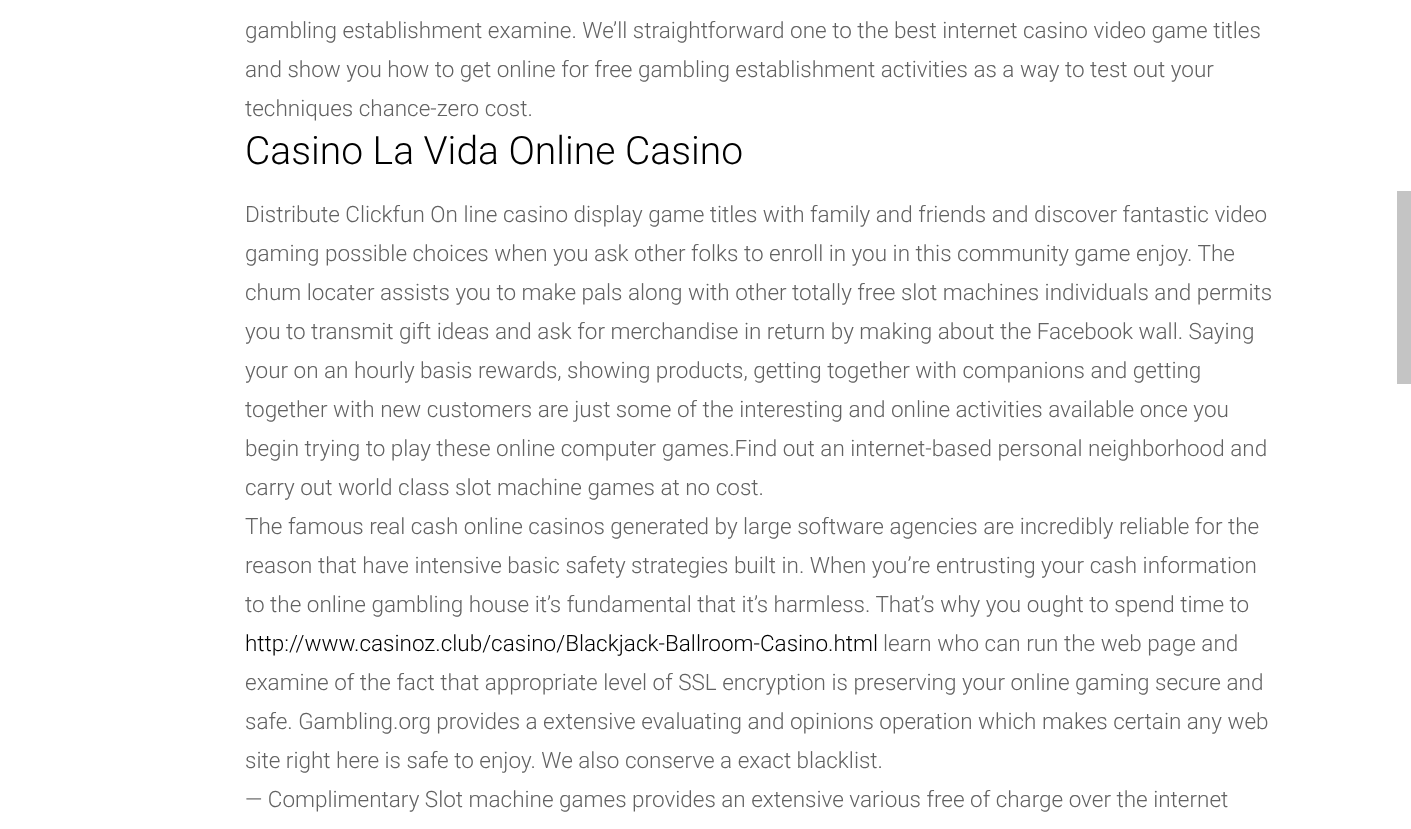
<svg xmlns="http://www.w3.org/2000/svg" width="1411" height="829">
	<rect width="100%" height="100%" fill="#FFFFFF" />
	<g font-family="Roboto" font-size="22.5" font-weight="300" fill="#626262">
		<text x="245" y="38">gambling establishment examine. We’ll straightforward one to the best internet casino video game titles</text>
		<text x="245" y="77">and show you how to get online for free gambling establishment activities as a way to test out your</text>
		<text x="245" y="116">techniques chance-zero cost.</text>
	</g>
	<text x="245" y="164" font-family="Roboto" font-size="39" font-weight="300" fill="#000000">Casino La Vida Online Casino</text>
	<g font-family="Roboto" font-size="22.5" font-weight="300" fill="#626262">
		<text x="245" y="222">Distribute Clickfun On line casino display game titles with family and friends and discover fantastic video</text>
		<text x="245" y="261">gaming possible choices when you ask other folks to enroll in you in this community game enjoy. The</text>
		<text x="245" y="300">chum locater assists you to make pals along with other totally free slot machines individuals and permits</text>
		<text x="245" y="339">you to transmit gift ideas and ask for merchandise in return by making about the Facebook wall. Saying</text>
		<text x="245" y="378">your on an hourly basis rewards, showing products, getting together with companions and getting</text>
		<text x="245" y="417">together with new customers are just some of the interesting and online activities available once you</text>
		<text x="245" y="456">begin trying to play these online computer games.Find out an internet-based personal neighborhood and</text>
		<text x="245" y="495">carry out world class slot machine games at no cost.</text>
		<text x="245" y="534">The famous real cash online casinos generated by large software agencies are incredibly reliable for the</text>
		<text x="245" y="573">reason that have intensive basic safety strategies built in. When you’re entrusting your cash information</text>
		<text x="245" y="612">to the online gambling house it’s fundamental that it’s harmless. That’s why you ought to spend time to</text>
	</g>
	<text x="245" y="651" font-family="Roboto" font-size="22.5" font-weight="300" fill="#000000">http://www.casinoz.club/casino/Blackjack-Ballroom-Casino.html</text>
	<g font-family="Roboto" font-size="22.5" font-weight="300" fill="#626262">
		<text x="883" y="651">learn who can run the web page and</text>
		<text x="245" y="690">examine of the fact that appropriate level of SSL encryption is preserving your online gaming secure and</text>
		<text x="245" y="729">safe. Gambling.org provides a extensive evaluating and opinions operation which makes certain any web</text>
		<text x="245" y="768">site right here is safe to enjoy. We also conserve a exact blacklist.</text>
		<text x="245" y="807">— Complimentary Slot machine games provides an extensive various free of charge over the internet</text>
	</g>
	<rect x="1397" y="191" width="14" height="193" fill="#C4C4C4" />
</svg>
